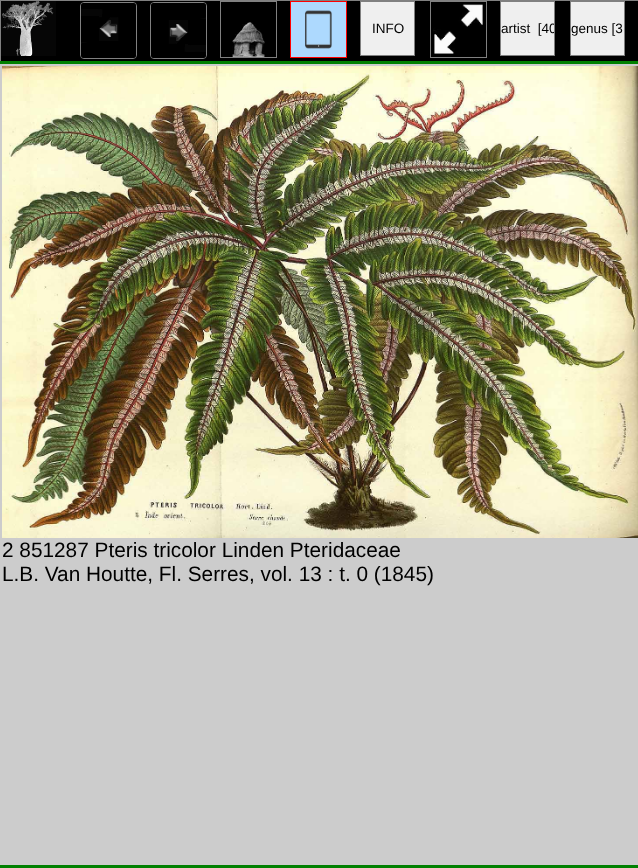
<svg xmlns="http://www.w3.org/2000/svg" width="638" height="868">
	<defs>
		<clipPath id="clip1"><rect x="501" y="2" width="53" height="53" /></clipPath>
	</defs>
	<rect width="100%" height="100%" fill="#CCCCCC" />
	<rect x="0.5" y="0.5" width="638" height="61" fill="#000000" stroke="#808080" />
	<image x="1" y="1" width="55" height="55" href="assets/img1.png" />
	<rect x="80.5" y="2.5" width="56" height="56" rx="3.5" fill="none" stroke="#808080" />
	<image x="81" y="3" width="55" height="55" href="assets/img2.png" />
	<rect x="150.5" y="2.5" width="56" height="56" rx="3.5" fill="none" stroke="#808080" />
	<image x="151" y="3" width="55" height="55" href="assets/img3.png" />
	<rect x="220.5" y="1.5" width="56" height="56" fill="none" stroke="#808080" />
	<image x="232" y="22" width="33" height="35" href="assets/img4.png" />
	<rect x="290.5" y="1.5" width="56" height="56" fill="none" stroke="#FF0000" />
	<image x="291" y="2" width="55" height="55" href="assets/img5.png" />
	<rect x="360.5" y="1.5" width="54" height="54" fill="#EFEFEF" stroke="#808080" />
	<text x="372" y="33" font-family="Liberation Sans" font-size="13.5" fill="#000000">INFO</text>
	<rect x="430.5" y="1.5" width="56" height="56" fill="none" stroke="#808080" />
	<image x="433" y="4" width="50" height="50" href="assets/img6.png" />
	<rect x="500.5" y="1.5" width="54" height="54" fill="#EFEFEF" stroke="#808080" />
	<g clip-path="url(#clip1)">
		<text x="501" y="33" font-family="Liberation Sans" font-size="13.5" fill="#000000" xml:space="preserve">artist  [40</text>
	</g>
	<rect x="570.5" y="1.5" width="54" height="54" fill="#EFEFEF" stroke="#808080" />
	<text x="571" y="33" font-family="Liberation Sans" font-size="13.5" fill="#000000">genus [3</text>
	<rect x="0" y="61" width="638" height="3" fill="#008000" />
	<rect x="0" y="865" width="638" height="3" fill="#008000" />
	<image x="2" y="66" width="636" height="472" href="assets/img7.png" />
	<g font-family="Liberation Sans" font-size="20.8" fill="#000000">
		<text x="2" y="557">2 851287 Pteris tricolor Linden Pteridaceae</text>
		<text x="2" y="581">L.B. Van Houtte, Fl. Serres, vol. 13 : t. 0 (1845)</text>
	</g>
</svg>
